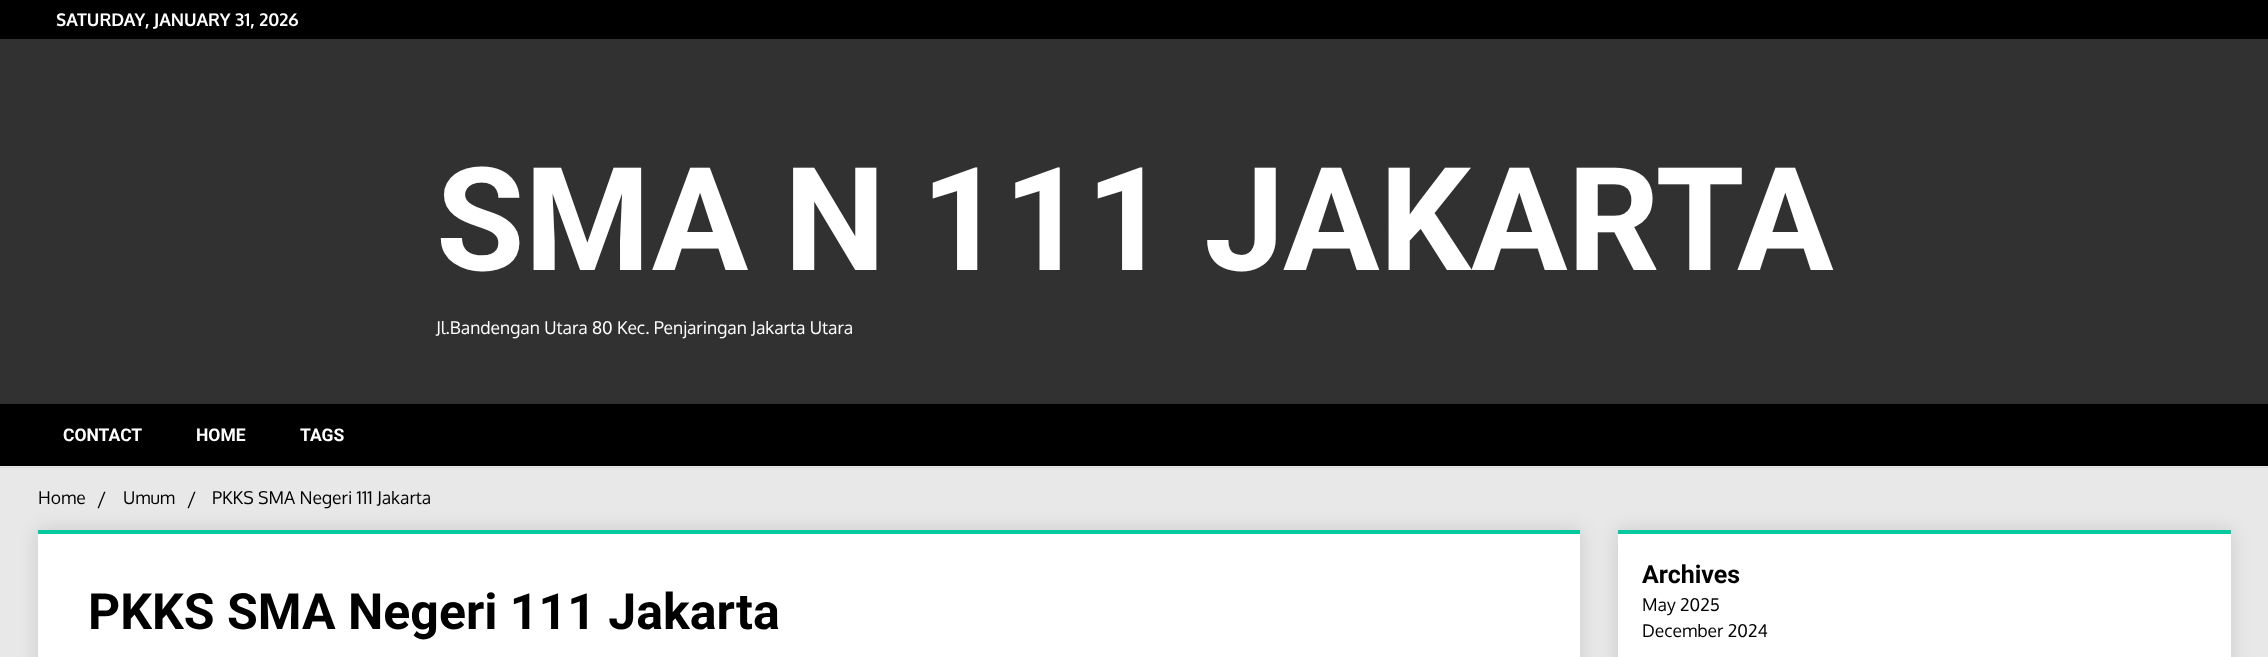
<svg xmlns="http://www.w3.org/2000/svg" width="2268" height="657">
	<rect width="100%" height="100%" fill="#E8E8E8" />
	<rect x="0" y="0" width="2268" height="39" fill="#000000" />
	<text x="56" y="26" font-family="Oxygen" font-size="17.5" font-weight="700" fill="#FFFFFF">SATURDAY, JANUARY 31, 2026</text>
	<rect x="0" y="39" width="2268" height="365" fill="#313131" />
	<text x="436" y="270" font-family="Roboto" font-size="143.75" font-weight="700" fill="#FFFFFF">SMA N 111 JAKARTA</text>
	<text x="436" y="334" font-family="Oxygen" font-size="17.5" fill="#FFFFFF">Jl.Bandengan Utara 80 Kec. Penjaringan Jakarta Utara</text>
	<rect x="-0.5" y="403.5" width="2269" height="64" fill="none" stroke="#000000" stroke-opacity="0.06" />
	<rect x="0" y="404" width="2268" height="62" fill="#000000" />
	<g font-family="Roboto" font-size="17.5" font-weight="700" fill="#FFFFFF">
		<text x="63" y="441">CONTACT</text>
		<text x="196" y="441">HOME</text>
		<text x="300" y="441">TAGS</text>
	</g>
	<text x="38" y="504" font-family="Oxygen" font-size="17.5" fill="#000000">Home</text>
	<text x="97" y="506" font-family="Oxygen" font-size="20" fill="#000000">/</text>
	<text x="123" y="504" font-family="Oxygen" font-size="17.5" fill="#000000">Umum</text>
	<text x="187" y="506" font-family="Oxygen" font-size="20" fill="#000000">/</text>
	<text x="212" y="504" font-family="Oxygen" font-size="17.5" fill="#000000">PKKS SMA Negeri 111 Jakarta</text>
	<rect x="38" y="530" width="1542" height="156" fill="#000000" fill-opacity="0.13" filter="blur(9.5px)" />
	<rect x="38" y="534" width="1542" height="123" fill="#FFFFFF" />
	<rect x="38" y="530" width="1542" height="4" fill="#06C99F" />
	<text x="88" y="629" font-family="Roboto" font-size="50" font-weight="700" fill="#000000">PKKS SMA Negeri 111 Jakarta</text>
	<rect x="1618" y="530" width="613" height="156" fill="#000000" fill-opacity="0.13" filter="blur(9.5px)" />
	<rect x="1618" y="534" width="613" height="123" fill="#FFFFFF" />
	<rect x="1618" y="530" width="613" height="4" fill="#06C99F" />
	<text x="1642" y="583" font-family="Roboto" font-size="25" font-weight="700" fill="#000000">Archives</text>
	<g font-family="Oxygen" font-size="17.5" fill="#000000">
		<text x="1642" y="611">May 2025</text>
		<text x="1642" y="637">December 2024</text>
	</g>
</svg>
